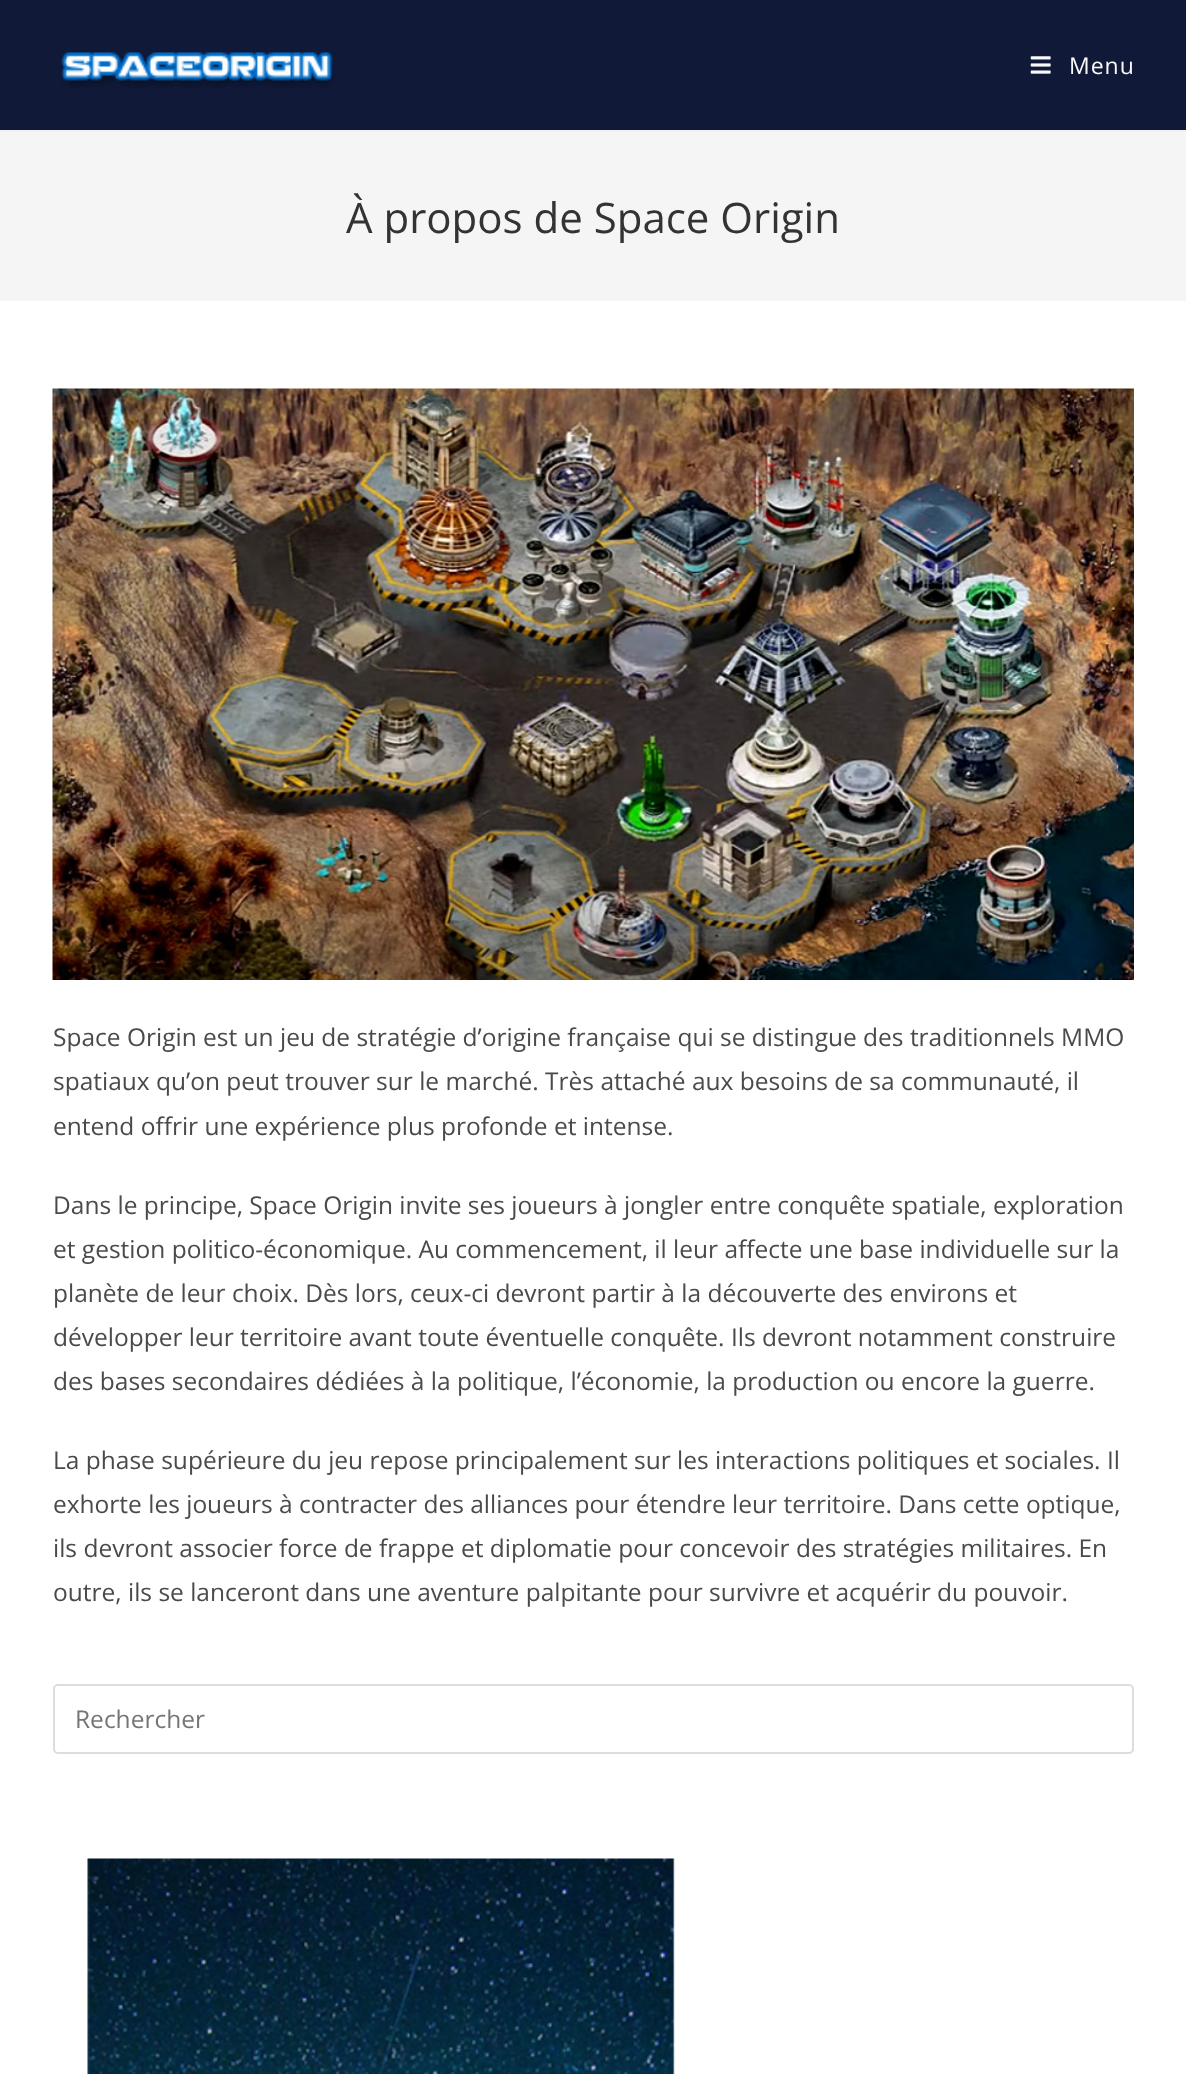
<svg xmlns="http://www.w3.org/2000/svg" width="1186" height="2074">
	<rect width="100%" height="100%" fill="#FFFFFF" />
	<rect x="0" y="0" width="1186" height="130" fill="#101A38" />
	<rect x="0" y="130" width="1186" height="2" fill="#F1F1F1" />
	<image x="61" y="52" width="273" height="36" href="assets/img1.png" />
	<image x="1030" y="56" width="21" height="18" href="assets/img2.png" />
	<text x="1069" y="74" font-family="Open Sans" font-size="23" letter-spacing="1" fill="#F9F9F9">Menu</text>
	<rect x="0" y="132" width="1186" height="169" fill="#F5F5F5" />
	<text x="346" y="233" font-family="Open Sans" font-size="42" fill="#333333">À propos de Space Origin</text>
	<image x="52" y="388" width="1082" height="592" href="assets/img3.png" />
	<g font-family="Open Sans" font-size="24.5" fill="#4A4A4A">
		<text x="53" y="1046">Space Origin est un jeu de stratégie d’origine française qui se distingue des traditionnels MMO</text>
		<text x="53" y="1090">spatiaux qu’on peut trouver sur le marché. Très attaché aux besoins de sa communauté, il</text>
		<text x="53" y="1135">entend offrir une expérience plus profonde et intense.</text>
		<text x="53" y="1214">Dans le principe, Space Origin invite ses joueurs à jongler entre conquête spatiale, exploration</text>
		<text x="53" y="1258">et gestion politico-économique. Au commencement, il leur affecte une base individuelle sur la</text>
		<text x="53" y="1302">planète de leur choix. Dès lors, ceux-ci devront partir à la découverte des environs et</text>
		<text x="53" y="1346">développer leur territoire avant toute éventuelle conquête. Ils devront notamment construire</text>
		<text x="53" y="1390">des bases secondaires dédiées à la politique, l’économie, la production ou encore la guerre.</text>
		<text x="53" y="1469">La phase supérieure du jeu repose principalement sur les interactions politiques et sociales. Il</text>
		<text x="53" y="1513">exhorte les joueurs à contracter des alliances pour étendre leur territoire. Dans cette optique,</text>
		<text x="53" y="1557">ils devront associer force de frappe et diplomatie pour concevoir des stratégies militaires. En</text>
		<text x="53" y="1601">outre, ils se lanceront dans une aventure palpitante pour survivre et acquérir du pouvoir.</text>
	</g>
	<rect x="54" y="1685" width="1079" height="68" rx="4" fill="none" stroke="#DDDDDD" stroke-width="2" />
	<text x="75" y="1728" font-family="Open Sans" font-size="24.5" fill="#757575">Rechercher</text>
	<image x="87" y="1858" width="588" height="216" href="assets/img4.png" />
</svg>
